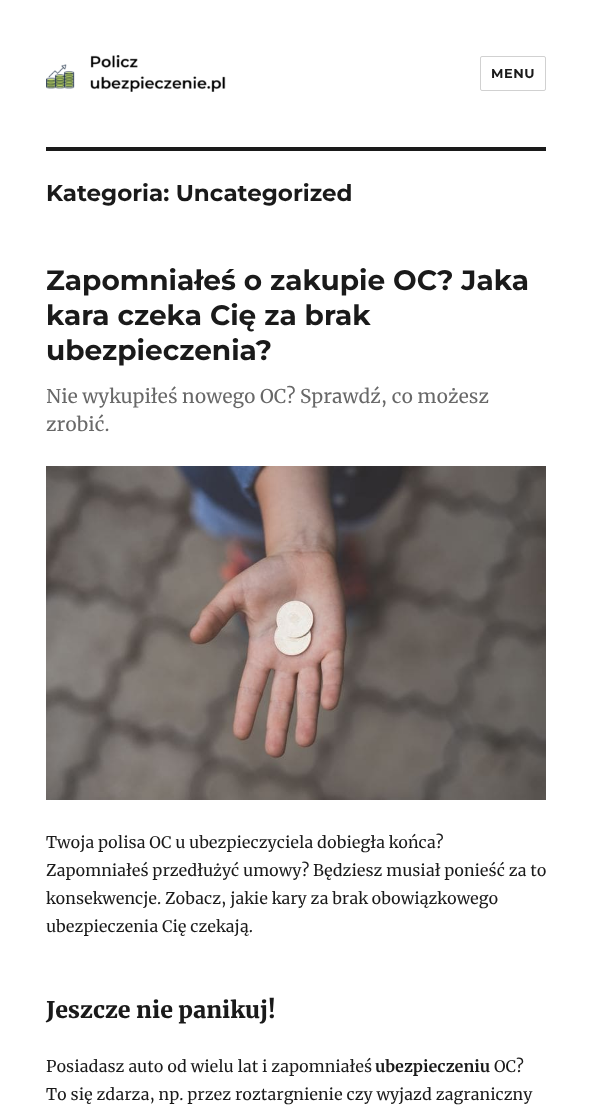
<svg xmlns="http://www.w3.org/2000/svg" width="592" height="1111">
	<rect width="100%" height="100%" fill="#FFFFFF" />
	<image x="46" y="55" width="180" height="37" href="assets/img1.png" />
	<rect x="480.5" y="56.5" width="65" height="34" rx="1.5" fill="none" stroke="#D1D1D1" />
	<text x="491" y="78" font-family="Montserrat" font-size="13" font-weight="700" letter-spacing="0.5" fill="#1A1A1A">MENU</text>
	<rect x="46" y="147" width="500" height="4" fill="#1A1A1A" />
	<text x="46" y="201" font-family="Montserrat" font-size="23" font-weight="700" fill="#1A1A1A">Kategoria: Uncategorized</text>
	<g font-family="Montserrat" font-size="28" font-weight="700" fill="#1A1A1A">
		<text x="46" y="290">Zapomniałeś o zakupie OC? Jaka</text>
		<text x="46" y="325">kara czeka Cię za brak</text>
		<text x="46" y="360">ubezpieczenia?</text>
	</g>
	<g font-family="Merriweather" font-size="19" fill="#686868">
		<text x="46" y="403">Nie wykupiłeś nowego OC? Sprawdź, co możesz</text>
		<text x="46" y="431">zrobić.</text>
	</g>
	<image x="46" y="466" width="500" height="334" href="assets/img2.png" />
	<g font-family="Merriweather" font-size="16" fill="#1A1A1A">
		<text x="46" y="848">Twoja polisa OC u ubezpieczyciela dobiegła końca?</text>
		<text x="46" y="876">Zapomniałeś przedłużyć umowy? Będziesz musiał ponieść za to</text>
		<text x="46" y="904">konsekwencje. Zobacz, jakie kary za brak obowiązkowego</text>
		<text x="46" y="932">ubezpieczenia Cię czekają.</text>
	</g>
	<text x="46" y="1018" font-family="Merriweather" font-size="23" font-weight="900" fill="#1A1A1A">Jeszcze nie panikuj!</text>
	<text x="46" y="1072" font-family="Merriweather" font-size="16" fill="#1A1A1A">Posiadasz auto od wielu lat i zapomniałeś</text>
	<text x="375" y="1072" font-family="Merriweather" font-size="16" font-weight="700" fill="#1A1A1A">ubezpieczeniu</text>
	<g font-family="Merriweather" font-size="16" fill="#1A1A1A">
		<text x="494" y="1072">OC?</text>
		<text x="46" y="1100">To się zdarza, np. przez roztargnienie czy wyjazd zagraniczny</text>
	</g>
</svg>
